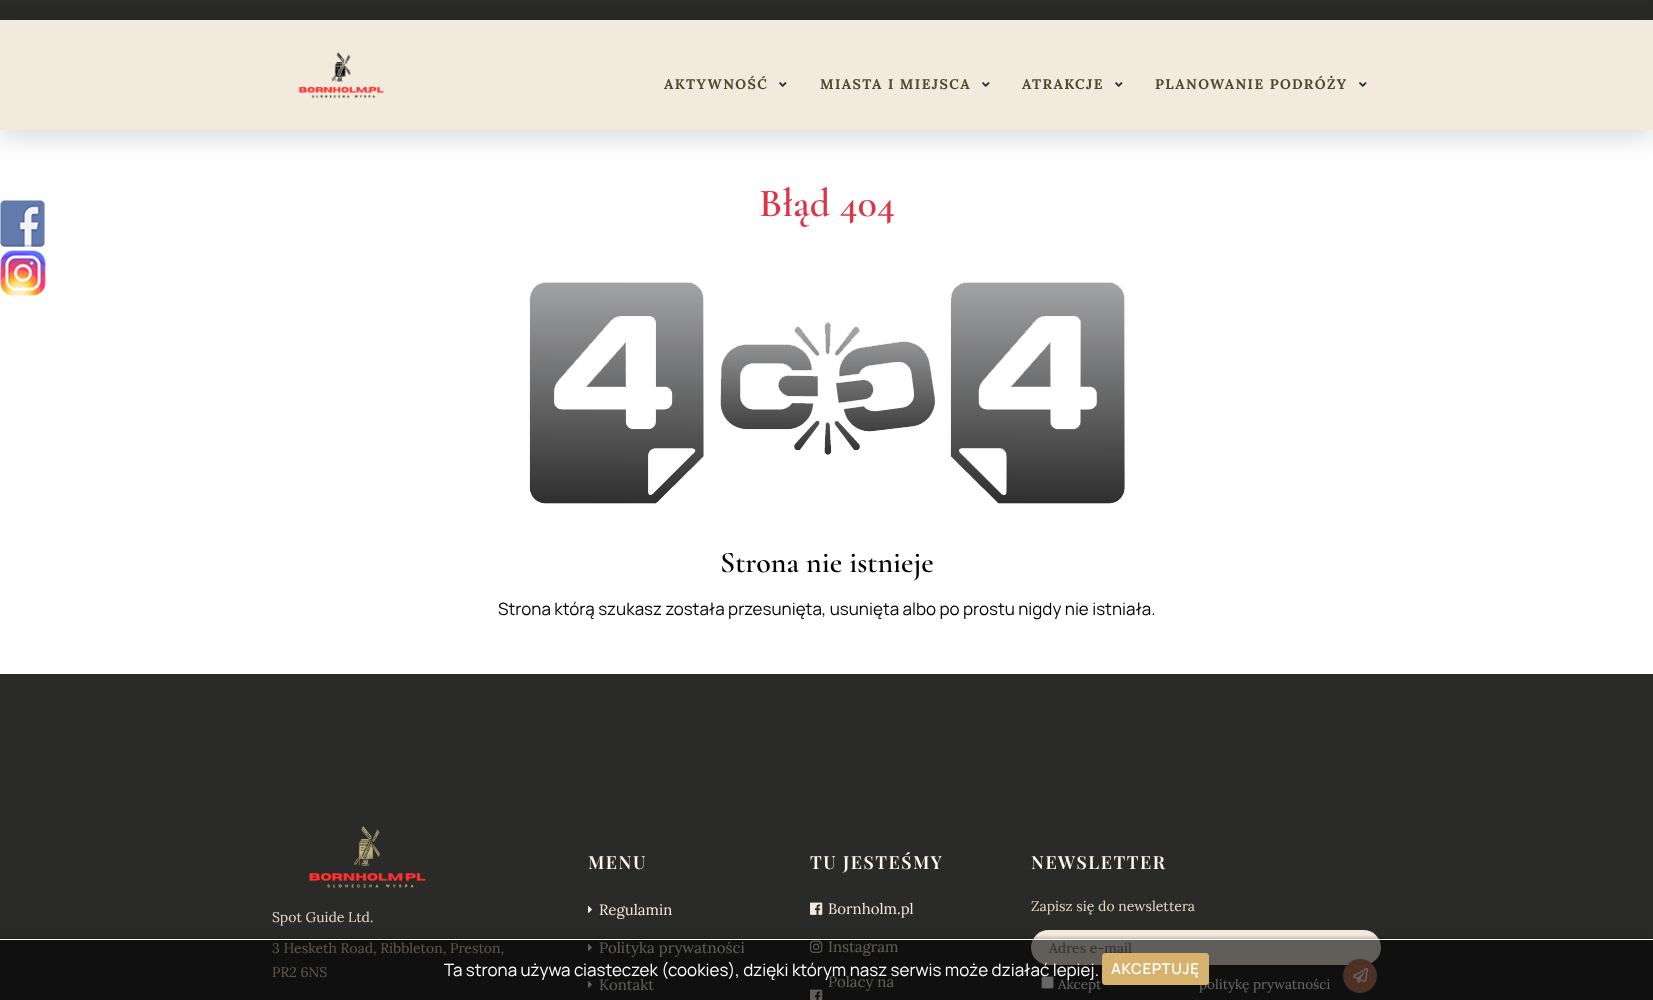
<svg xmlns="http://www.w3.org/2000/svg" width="1653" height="1000">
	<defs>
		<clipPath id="clip1"><rect x="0" y="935" width="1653" height="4" /></clipPath>
	</defs>
	<rect width="100%" height="100%" fill="#FFFFFF" />
	<rect x="0" y="0" width="1653" height="20" fill="#2A2A28" />
	<rect x="0" y="28" width="1653" height="110" fill="#000000" fill-opacity="0.14" filter="blur(12.5px)" />
	<rect x="0" y="20" width="1653" height="110" fill="#F3EADE" />
	<image x="298" y="52" width="86" height="47" href="assets/img1.png" />
	<text x="664" y="89" font-family="Lora" font-size="14" font-weight="700" letter-spacing="1.4" fill="#4E4A2E">AKTYWNOŚĆ</text>
	<image x="779" y="82" width="8" height="5" href="assets/img2.png" />
	<text x="820" y="89" font-family="Lora" font-size="14" font-weight="700" letter-spacing="1.4" fill="#4E4A2E">MIASTA I MIEJSCA</text>
	<image x="982" y="82" width="8" height="5" href="assets/img2.png" />
	<text x="1022" y="89" font-family="Lora" font-size="14" font-weight="700" letter-spacing="1.4" fill="#4E4A2E">ATRAKCJE</text>
	<image x="1115" y="82" width="8" height="5" href="assets/img2.png" />
	<text x="1155" y="89" font-family="Lora" font-size="14" font-weight="700" letter-spacing="1.4" fill="#4E4A2E">PLANOWANIE PODRÓŻY</text>
	<image x="1359" y="82" width="8" height="5" href="assets/img2.png" />
	<image x="0" y="200" width="45" height="47" href="assets/img3.png" />
	<text x="759" y="216" font-family="Cormorant Garamond" font-size="40" font-weight="600" fill="#DC3545">Błąd 404</text>
	<image x="529" y="282" width="596" height="222" href="assets/img4.png" />
	<text x="720" y="572" font-family="Cormorant Garamond" font-size="30" font-weight="600" fill="#000000">Strona nie istnieje</text>
	<text x="498" y="615" font-family="Manrope" font-size="17" fill="#000000">Strona którą szukasz została przesunięta, usunięta albo po prostu nigdy nie istniała.</text>
	<image x="0" y="250" width="46" height="46" href="assets/img5.png" />
	<rect x="0" y="674" width="1653" height="326" fill="#2A2A28" />
	<image x="309" y="826" width="117" height="62" href="assets/img6.png" />
	<g font-family="Lora" font-size="14" fill="#E8D7C5">
		<text x="272" y="922">Spot Guide Ltd.</text>
		<text x="272" y="953">3 Hesketh Road, Ribbleton, Preston,</text>
		<text x="272" y="977">PR2 6NS</text>
	</g>
	<text x="588" y="869" font-family="Playfair Display" font-size="18" font-weight="600" letter-spacing="1.5" fill="#FDF7EE">MENU</text>
	<image x="588" y="906" width="4" height="7" href="assets/img7.png" />
	<text x="599" y="915" font-family="Lora" font-size="15" fill="#F3E9DD">Regulamin</text>
	<image x="588" y="944" width="4" height="7" href="assets/img7.png" />
	<text x="599" y="953" font-family="Lora" font-size="15" fill="#F3E9DD">Polityka prywatności</text>
	<image x="588" y="981" width="4" height="7" href="assets/img7.png" />
	<text x="599" y="990" font-family="Lora" font-size="15" fill="#F3E9DD">Kontakt</text>
	<text x="810" y="869" font-family="Playfair Display" font-size="18" font-weight="600" letter-spacing="1.5" fill="#FDF7EE">TU JESTEŚMY</text>
	<image x="810" y="902" width="13" height="13" href="assets/img8.png" />
	<text x="828" y="914" font-family="Lora" font-size="15" fill="#F3E9DD">Bornholm.pl</text>
	<image x="810" y="940" width="13" height="13" href="assets/img9.png" />
	<g font-family="Lora" font-size="15" fill="#F3E9DD">
		<text x="828" y="952">Instagram</text>
		<text x="828" y="987">Polacy na</text>
	</g>
	<image x="810" y="989" width="13" height="11" href="assets/img10.png" />
	<text x="1031" y="869" font-family="Playfair Display" font-size="18" font-weight="600" letter-spacing="1.5" fill="#FDF7EE">NEWSLETTER</text>
	<text x="1031" y="911" font-family="Lora" font-size="14" fill="#E8D7C5">Zapisz się do newslettera</text>
	<rect x="1031" y="930" width="350" height="35" rx="17.5" fill="#F3E9DD" />
	<text x="1049" y="953" font-family="Lora" font-size="14" fill="#7A7670">Adres e-mail</text>
	<rect x="1041.5" y="976.5" width="12" height="12" rx="1.5" fill="#FFFFFF" stroke="#767676" />
	<g font-family="Lora" font-size="13.5" fill="#FFFFFF">
		<text x="1058" y="989">Akcept</text>
		<text x="1199" y="989">politykę prywatności</text>
	</g>
	<circle cx="1360" cy="976" r="17" fill="#C27A5A" />
	<image x="1353" y="967" width="15" height="16" href="assets/img11.png" />
	<g clip-path="url(#clip1)">
		<rect x="0" y="939" width="1653" height="61" fill="#000000" fill-opacity="0.4" filter="blur(2.5px)" />
	</g>
	<rect x="0" y="940" width="1653" height="60" fill="#000000" fill-opacity="0.6" />
	<rect x="0" y="939" width="1653" height="1" fill="#FFFFFF" />
	<text x="444" y="976" font-family="Manrope" font-size="17" fill="#FFFFFF">Ta strona używa ciasteczek (cookies), dzięki którym nasz serwis może działać lepiej.</text>
	<rect x="1102.5" y="953.5" width="106" height="31" rx="2.5" fill="#D7B26C" stroke="#D7B26C" />
	<text x="1111" y="974" font-family="Manrope" font-size="15" font-weight="600" letter-spacing="0.5" fill="#FFFFFF">AKCEPTUJĘ</text>
</svg>
